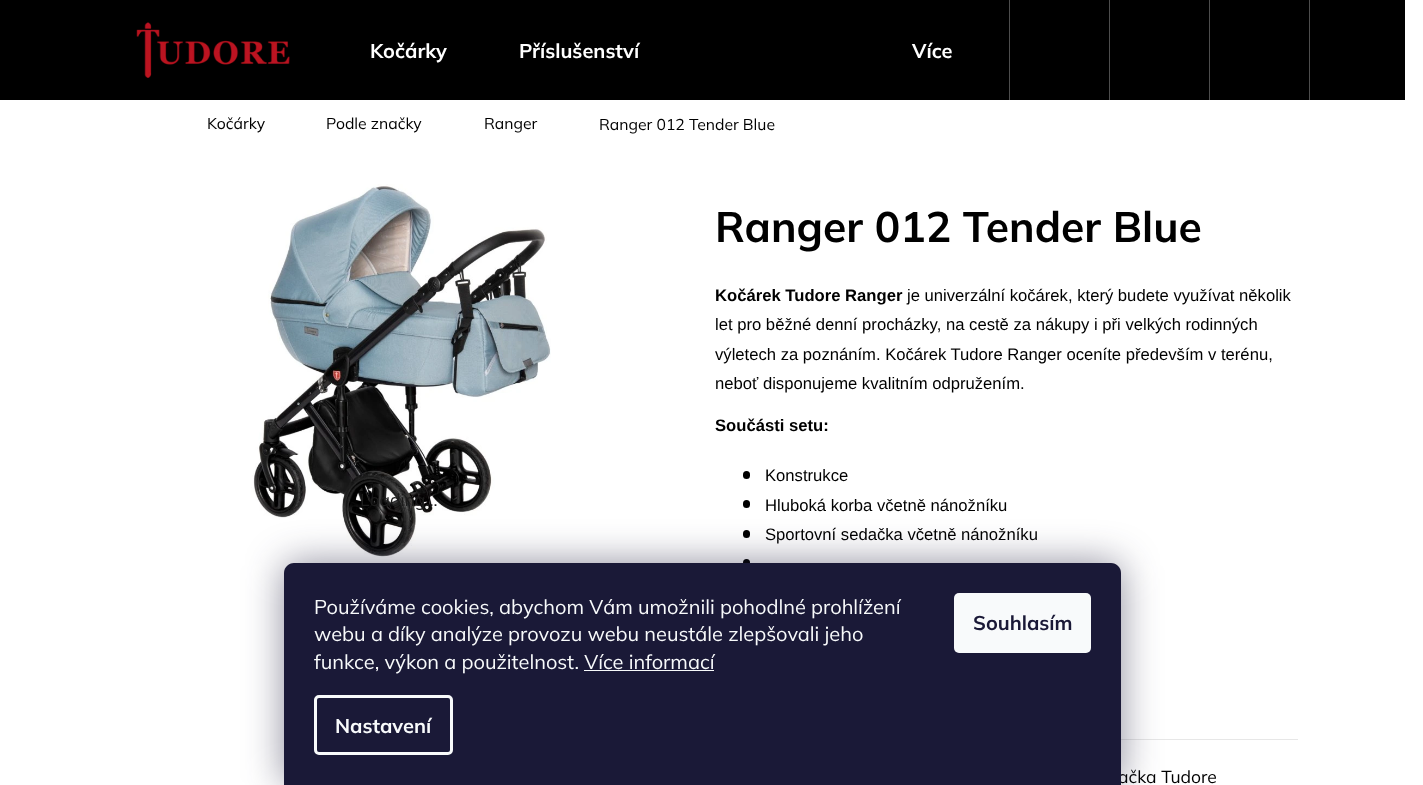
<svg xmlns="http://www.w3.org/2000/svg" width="1423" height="785">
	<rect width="100%" height="100%" fill="#FFFFFF" />
	<rect x="0" y="0" width="1405" height="100" fill="#000000" />
	<image x="136" y="22" width="154" height="56" href="assets/img1.png" />
	<g font-family="Mulish" font-size="20" font-weight="700" fill="#FFFFFF">
		<text x="370" y="58">Kočárky</text>
		<text x="519" y="58">Příslušenství</text>
		<text x="912" y="58">Více</text>
	</g>
	<rect x="1309" y="0" width="1" height="100" fill="#4D4D4D" />
	<rect x="1009" y="0" width="1" height="100" fill="#4D4D4D" />
	<rect x="1109" y="0" width="1" height="100" fill="#4D4D4D" />
	<rect x="1209" y="0" width="1" height="100" fill="#4D4D4D" />
	<g font-family="Mulish" font-size="15.75" fill="#000000">
		<text x="207" y="129">Kočárky</text>
		<text x="326" y="129">Podle značky</text>
		<text x="484" y="129">Ranger</text>
		<text x="599" y="130">Ranger 012 Tender Blue</text>
	</g>
	<image x="251" y="184" width="300" height="374" href="assets/img2.png" />
	<text x="360" y="506" font-family="Mulish" font-size="17.5" fill="#1C1C1C">Loading...</text>
	<text x="715" y="242" font-family="Mulish" font-size="42.5" font-weight="700" fill="#000000">Ranger 012 Tender Blue</text>
	<text x="715" y="301" font-family="Liberation Sans" font-size="16.65" font-weight="700" fill="#000000">Kočárek Tudore Ranger</text>
	<g font-family="Liberation Sans" font-size="16.65" fill="#000000">
		<text x="907" y="301">je univerzální kočárek, který budete využívat několik</text>
		<text x="715" y="330">let pro běžné denní procházky, na cestě za nákupy i při velkých rodinných</text>
		<text x="715" y="360">výletech za poznáním. Kočárek Tudore Ranger oceníte především v terénu,</text>
		<text x="715" y="389">neboť disponujeme kvalitním odpružením.</text>
	</g>
	<text x="715" y="431" font-family="Liberation Sans" font-size="16.65" font-weight="700" fill="#000000">Součásti setu:</text>
	<rect x="743" y="471" width="7" height="8" rx="3.5" fill="#000000" />
	<text x="765" y="481" font-family="Liberation Sans" font-size="16.65" fill="#000000">Konstrukce</text>
	<rect x="743" y="500" width="7" height="8" rx="3.5" fill="#000000" />
	<text x="765" y="511" font-family="Liberation Sans" font-size="16.65" fill="#000000">Hluboká korba včetně nánožníku</text>
	<rect x="743" y="530" width="7" height="8" rx="3.5" fill="#000000" />
	<text x="765" y="540" font-family="Liberation Sans" font-size="16.65" fill="#000000">Sportovní sedačka včetně nánožníku</text>
	<circle cx="746.5" cy="562.5" r="3.5" fill="#000000" />
	<rect x="1121" y="739" width="177" height="1" fill="#E7E7E7" />
	<text x="1118" y="783" font-family="Mulish" font-size="17.5" fill="#000000">ačka Tudore</text>
	<rect x="284" y="563" width="837" height="222" rx="10" fill="#1B1939" fill-opacity="0.5" filter="blur(19px)" />
	<path d="M294 563H1111C1116.5 563 1121 567.5 1121 573V785H284V573C284 567.5 288.5 563 294 563Z" fill="#1A1937" />
	<g font-family="Mulish" font-size="20" fill="#F8FAFB">
		<text x="314" y="614">Používáme cookies, abychom Vám umožnili pohodlné prohlížení</text>
		<text x="314" y="641">webu a díky analýze provozu webu neustále zlepšovali jeho</text>
		<text x="314" y="669">funkce, výkon a použitelnost. Více informací</text>
	</g>
	<rect x="584" y="670" width="130" height="1" fill="#F8FAFB" />
	<rect x="315.5" y="696.5" width="136" height="57" rx="3.5" fill="none" stroke="#F8FAFB" stroke-width="3" />
	<text x="335" y="733" font-family="Mulish" font-size="20" font-weight="700" fill="#F8FAFB">Nastavení</text>
	<rect x="954" y="593" width="137" height="60" rx="5" fill="#F8FAFB" />
	<text x="973" y="630" font-family="Mulish" font-size="20" font-weight="700" fill="#1A1937">Souhlasím</text>
</svg>
